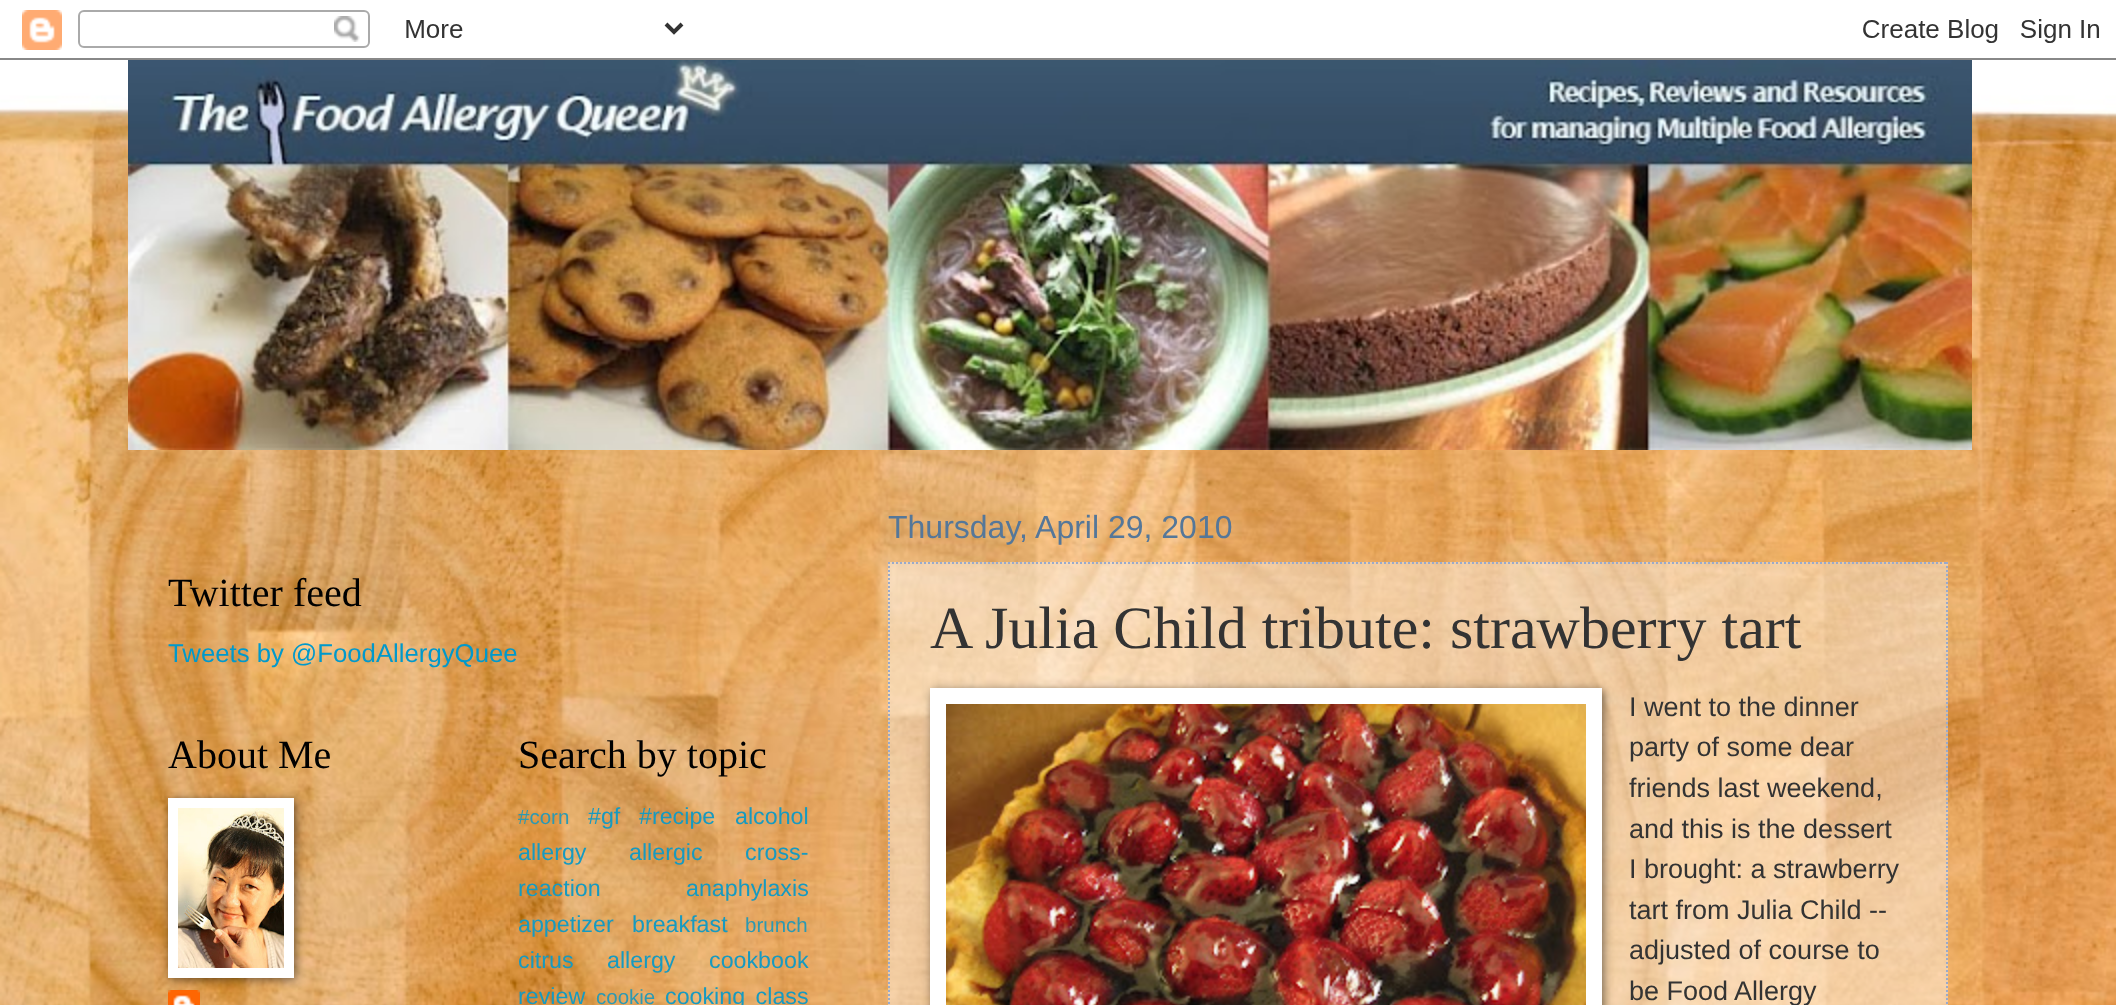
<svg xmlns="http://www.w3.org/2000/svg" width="2116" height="1005">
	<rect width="100%" height="100%" fill="#FFFFFF" />
	<image x="0" y="0" width="2116" height="1005" href="assets/img1.png" />
	<image x="0" y="10" width="2116" height="50" href="assets/img2.png" />
	<image x="128" y="60" width="1844" height="390" href="assets/img3.png" />
	<text x="168" y="606" font-family="Liberation Serif" font-size="40" fill="#000000">Twitter feed</text>
	<text x="168" y="662" font-family="Liberation Sans" font-size="25.75" fill="#0099CC">Tweets by @FoodAllergyQuee</text>
	<text x="168" y="768" font-family="Liberation Serif" font-size="40" fill="#000000">About Me</text>
	<image x="168" y="990" width="32" height="15" href="assets/img5.png" />
	<rect x="170" y="800" width="126" height="180" fill="#000000" fill-opacity="0.5" filter="blur(5px)" />
	<rect x="168" y="798" width="126" height="180" fill="#FFFFFF" />
	<image x="178" y="808" width="106" height="160" href="assets/img4.png" />
	<text x="518" y="768" font-family="Liberation Serif" font-size="40" fill="#000000">Search by topic</text>
	<text x="518" y="824" font-family="Liberation Sans" font-size="20.5" fill="#2C99B3">#corn</text>
	<g font-family="Liberation Sans" font-size="23.25" fill="#169AC1">
		<text x="588" y="824">#gf</text>
		<text x="639" y="824">#recipe</text>
		<text x="735" y="824">alcohol</text>
		<text x="518" y="860">allergy</text>
		<text x="629" y="860" word-spacing="36">allergic cross-</text>
		<text x="518" y="896">reaction</text>
		<text x="686" y="896">anaphylaxis</text>
		<text x="518" y="932">appetizer</text>
		<text x="632" y="932">breakfast</text>
	</g>
	<text x="745" y="932" font-family="Liberation Sans" font-size="20.5" fill="#2C99B3">brunch</text>
	<g font-family="Liberation Sans" font-size="23.25" fill="#169AC1">
		<text x="518" y="968" word-spacing="27">citrus allergy</text>
		<text x="709" y="968">cookbook</text>
		<text x="518" y="1004">review</text>
	</g>
	<text x="596" y="1004" font-family="Liberation Sans" font-size="20.5" fill="#2C99B3">cookie</text>
	<text x="665" y="1004" word-spacing="4" font-family="Liberation Sans" font-size="23.25" fill="#169AC1">cooking class</text>
	<text x="888" y="538" font-family="Liberation Sans" font-size="32" fill="#557799">Thursday, April 29, 2010</text>
	<rect x="888" y="562" width="1060" height="443" fill="#FFFFFF" fill-opacity="0.4" />
	<path d="M888 563H1948" fill="none" stroke="#99AACC" stroke-width="2" stroke-dasharray="2 2" />
	<path d="M1947 562V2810" fill="none" stroke="#99AACC" stroke-width="2" stroke-dasharray="2 2" />
	<path d="M889 562V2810" fill="none" stroke="#99AACC" stroke-width="2" stroke-dasharray="2 2" />
	<text x="930" y="648" font-family="Liberation Serif" font-size="60" fill="#333333">A Julia Child tribute: strawberry tart</text>
	<rect x="932" y="690" width="672" height="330" fill="#000000" fill-opacity="0.5" filter="blur(5px)" />
	<rect x="930" y="688" width="672" height="317" fill="#FFFFFF" />
	<image x="946" y="704" width="640" height="301" href="assets/img6.png" />
	<g font-family="Liberation Sans" font-size="27" fill="#333333">
		<text x="1629" y="716">I went to the dinner</text>
		<text x="1629" y="756">party of some dear</text>
		<text x="1629" y="797">friends last weekend,</text>
		<text x="1629" y="838">and this is the dessert</text>
		<text x="1629" y="878">I brought: a strawberry</text>
		<text x="1629" y="919">tart from Julia Child --</text>
		<text x="1629" y="959">adjusted of course to</text>
		<text x="1629" y="1000">be Food Allergy</text>
	</g>
</svg>
